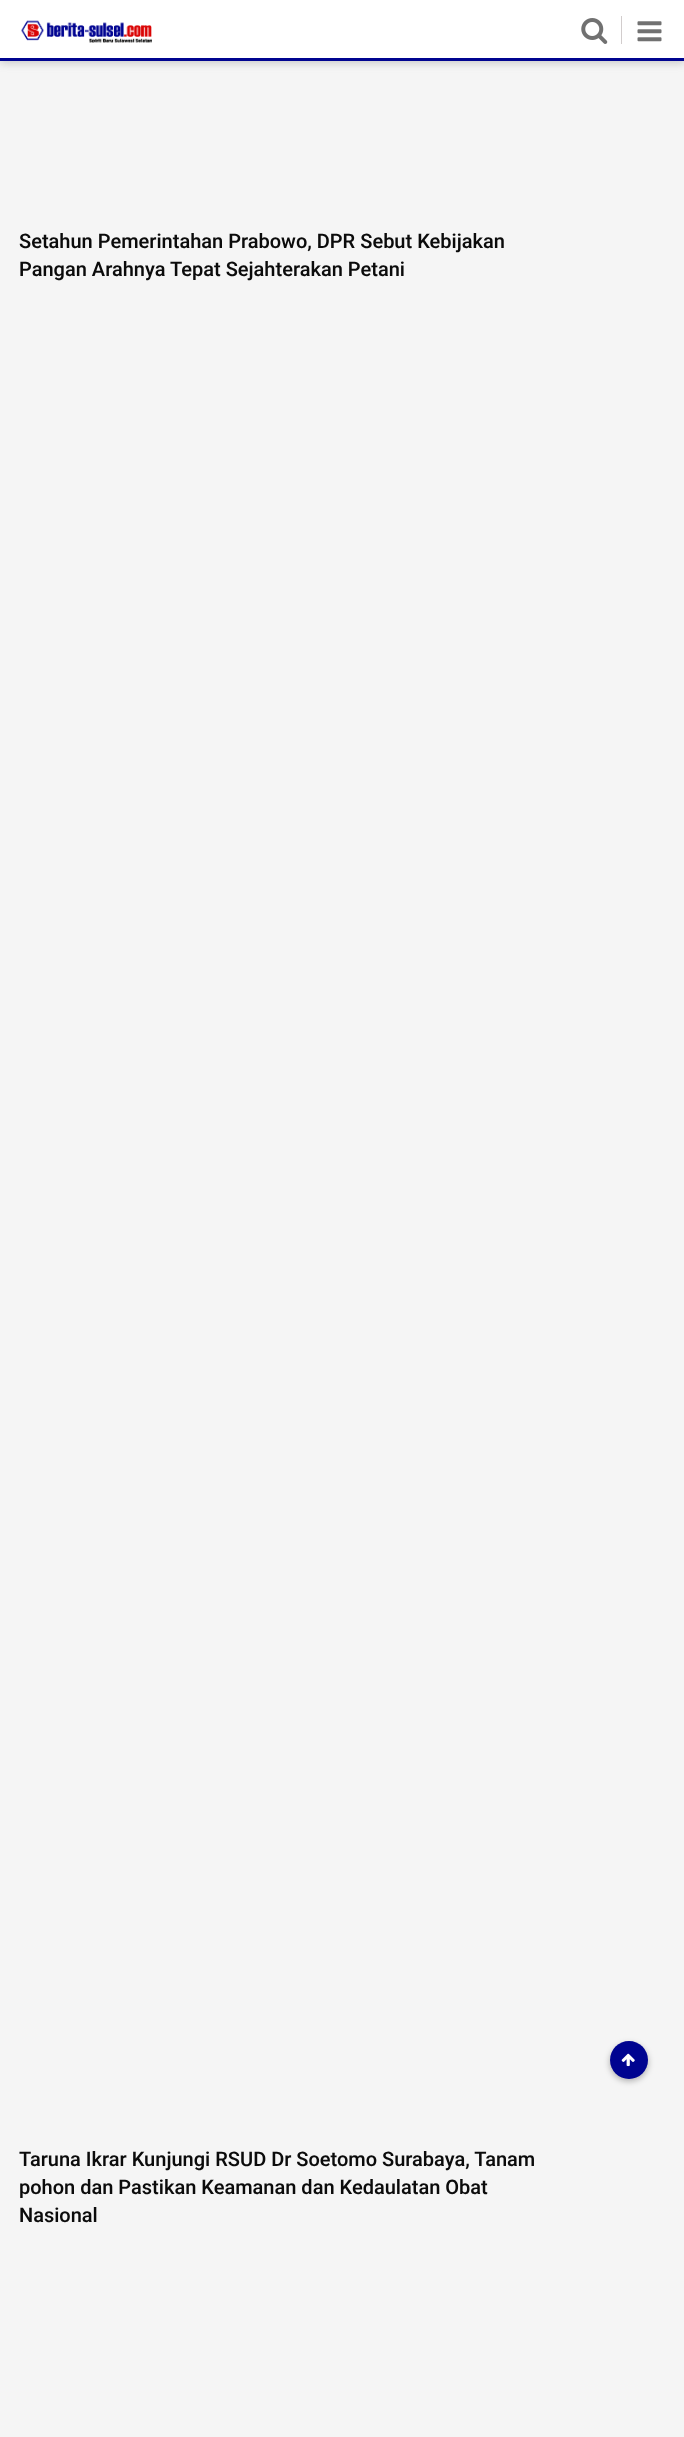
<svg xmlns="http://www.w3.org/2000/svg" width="684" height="2437">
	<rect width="100%" height="100%" fill="#F5F5F5" />
	<rect x="0" y="-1" width="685" height="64" fill="#646464" fill-opacity="0.3" filter="blur(4px)" />
	<rect x="0" y="0" width="684" height="58" fill="#FFFFFF" />
	<rect x="0" y="58" width="684" height="3" fill="#000490" />
	<image x="21" y="20" width="131" height="23" href="assets/img1.png" />
	<rect x="621" y="16" width="1" height="28" fill="#D2CDCD" />
	<image x="581" y="18" width="27" height="26" href="assets/img2.png" />
	<image x="637" y="21" width="25" height="21" href="assets/img3.png" />
	<g font-family="Roboto" font-size="20" font-weight="500" fill="#0B0B0B">
		<text x="19" y="248">Setahun Pemerintahan Prabowo, DPR Sebut Kebijakan</text>
		<text x="19" y="276">Pangan Arahnya Tepat Sejahterakan Petani</text>
		<text x="19" y="2166">Taruna Ikrar Kunjungi RSUD Dr Soetomo Surabaya, Tanam</text>
		<text x="19" y="2194">pohon dan Pastikan Keamanan dan Kedaulatan Obat</text>
		<text x="19" y="2222">Nasional</text>
	</g>
	<rect x="610" y="2044" width="38" height="37" rx="18.5" fill="#000000" fill-opacity="0.3" filter="blur(3px)" />
	<circle cx="629" cy="2060" r="19" fill="#000490" />
	<image x="621" y="2053" width="14" height="14" href="assets/img4.png" />
</svg>
